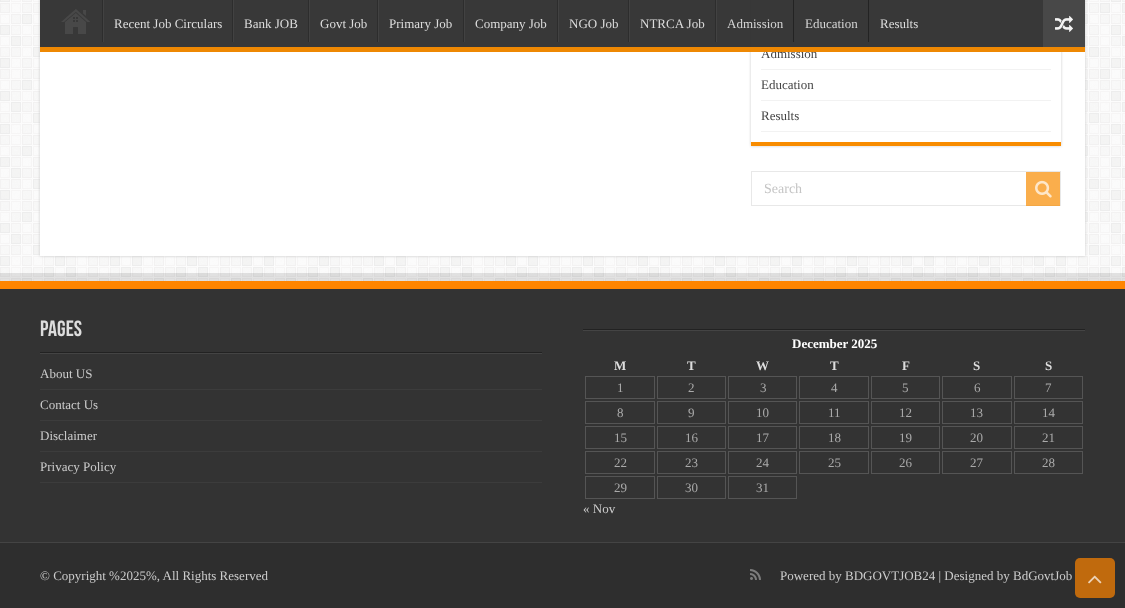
<svg xmlns="http://www.w3.org/2000/svg" width="1125" height="608">
	<defs>
		<clipPath id="clip1"><path d="M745 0H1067V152H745ZM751-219H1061V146H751Z" clip-rule="evenodd" /></clipPath>
	</defs>
	<rect width="100%" height="100%" fill="#FFFFFF" />
	<image x="0" y="0" width="1125" height="281" href="assets/img1.png" />
	<rect x="40" y="-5" width="1045" height="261" fill="#CACACA" filter="blur(1.5px)" />
	<rect x="40" y="0" width="1045" height="256" fill="#FFFFFF" />
	<g clip-path="url(#clip1)">
		<rect x="751" y="-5" width="310" height="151" fill="#CACACA" filter="blur(1.5px)" />
	</g>
	<rect x="761" y="7" width="290" height="1" fill="#F2F2F2" />
	<rect x="761" y="38" width="290" height="1" fill="#F2F2F2" />
	<text x="761" y="58" font-family="Liberation Serif" font-size="13" fill="#444444">Admission</text>
	<rect x="40" y="0" width="1045" height="52" fill="#2D2D2D" fill-opacity="0.95" />
	<rect x="40" y="47" width="1045" height="5" fill="#F88C00" fill-opacity="0.95" />
	<image x="61" y="9" width="29" height="25" href="assets/img2.png" />
	<rect x="102" y="0" width="1" height="42" fill="#2D2D2D" />
	<rect x="103" y="0" width="1" height="42" fill="#424242" />
	<text x="114" y="28" font-family="Liberation Serif" font-size="13" fill="#DDDDDD">Recent Job Circulars</text>
	<rect x="232" y="0" width="1" height="42" fill="#2D2D2D" />
	<rect x="233" y="0" width="1" height="42" fill="#424242" />
	<text x="244" y="28" font-family="Liberation Serif" font-size="13" fill="#DDDDDD">Bank JOB</text>
	<rect x="308" y="0" width="1" height="42" fill="#2D2D2D" />
	<rect x="309" y="0" width="1" height="42" fill="#424242" />
	<text x="320" y="28" font-family="Liberation Serif" font-size="13" fill="#DDDDDD">Govt Job</text>
	<rect x="377" y="0" width="1" height="42" fill="#2D2D2D" />
	<rect x="378" y="0" width="1" height="42" fill="#424242" />
	<text x="389" y="28" font-family="Liberation Serif" font-size="13" fill="#DDDDDD">Primary Job</text>
	<rect x="463" y="0" width="1" height="42" fill="#2D2D2D" />
	<rect x="464" y="0" width="1" height="42" fill="#424242" />
	<text x="475" y="28" font-family="Liberation Serif" font-size="13" fill="#DDDDDD">Company Job</text>
	<rect x="557" y="0" width="1" height="42" fill="#2D2D2D" />
	<rect x="558" y="0" width="1" height="42" fill="#424242" />
	<text x="569" y="28" font-family="Liberation Serif" font-size="13" fill="#DDDDDD">NGO Job</text>
	<rect x="628" y="0" width="1" height="42" fill="#2D2D2D" />
	<rect x="629" y="0" width="1" height="42" fill="#424242" />
	<text x="640" y="28" font-family="Liberation Serif" font-size="13" fill="#DDDDDD">NTRCA Job</text>
	<rect x="715" y="0" width="1" height="42" fill="#2D2D2D" />
	<rect x="716" y="0" width="1" height="42" fill="#424242" />
	<text x="727" y="28" font-family="Liberation Serif" font-size="13" fill="#D5D5D5">Admission</text>
	<rect x="793" y="0" width="1" height="42" fill="#222222" fill-opacity="0.95" />
	<text x="805" y="28" font-family="Liberation Serif" font-size="13" fill="#D5D5D5">Education</text>
	<rect x="868" y="0" width="1" height="42" fill="#232323" />
	<text x="880" y="28" font-family="Liberation Serif" font-size="13" fill="#DDDDDD">Results</text>
	<rect x="1043" y="0" width="42" height="47" fill="#494949" fill-opacity="0.95" />
	<image x="1055" y="15" width="18" height="17" href="assets/img3.png" />
	<rect x="751" y="142" width="310" height="4" fill="#F88C00" />
	<rect x="761" y="69" width="290" height="1" fill="#F2F2F2" />
	<rect x="761" y="100" width="290" height="1" fill="#F2F2F2" />
	<text x="761" y="89" font-family="Liberation Serif" font-size="13" fill="#444444">Education</text>
	<rect x="761" y="131" width="290" height="1" fill="#F2F2F2" />
	<text x="761" y="120" font-family="Liberation Serif" font-size="13" fill="#444444">Results</text>
	<rect x="751.5" y="171.5" width="309" height="34" fill="none" stroke="#E8E8E8" />
	<text x="764" y="193" font-family="Liberation Serif" font-size="14" fill="#C5C5C5">Search</text>
	<rect x="1026" y="172" width="34" height="34" fill="#F88C00" fill-opacity="0.7" />
	<image x="1035" y="180" width="17" height="18" href="assets/img4.png" />
	<rect x="0" y="273" width="1125" height="8" fill="#000000" fill-opacity="0.1" />
	<rect x="0" y="289" width="1125" height="253" fill="#333333" />
	<rect x="0" y="281" width="1125" height="8" fill="#FF8500" />
	<rect x="40" y="352" width="502" height="1" fill="#222222" />
	<text x="40" y="336" font-family="Bebas Neue" font-size="22" font-weight="700" fill="#DDDDDD">Pages</text>
	<rect x="40" y="353" width="502" height="1" fill="#444444" />
	<rect x="40" y="389" width="502" height="1" fill="#3C3C3C" />
	<text x="40" y="378" font-family="Liberation Serif" font-size="13" fill="#CCCCCC">About US</text>
	<rect x="40" y="420" width="502" height="1" fill="#3C3C3C" />
	<text x="40" y="409" font-family="Liberation Serif" font-size="13" fill="#CCCCCC">Contact Us</text>
	<rect x="40" y="451" width="502" height="1" fill="#3C3C3C" />
	<text x="40" y="440" font-family="Liberation Serif" font-size="13" fill="#CCCCCC">Disclaimer</text>
	<rect x="40" y="482" width="502" height="1" fill="#3C3C3C" />
	<text x="40" y="471" font-family="Liberation Serif" font-size="13" fill="#CCCCCC">Privacy Policy</text>
	<rect x="583" y="329" width="502" height="1" fill="#222222" />
	<rect x="583" y="330" width="502" height="1" fill="#444444" />
	<text x="792" y="348" font-family="Liberation Serif" font-size="13" font-weight="700" fill="#FFFFFF">December 2025</text>
	<g font-family="Liberation Serif" font-size="13" font-weight="700" fill="#DDDDDD">
		<text x="614" y="370">M</text>
		<text x="687" y="370">T</text>
		<text x="756" y="370">W</text>
		<text x="830" y="370">T</text>
		<text x="902" y="370">F</text>
		<text x="973" y="370">S</text>
		<text x="1045" y="370">S</text>
	</g>
	<rect x="585.5" y="376.5" width="69" height="22" fill="none" stroke="#555555" />
	<text x="617" y="392" font-family="Liberation Serif" font-size="13" fill="#AAAAAA">1</text>
	<rect x="657.5" y="376.5" width="68" height="22" fill="none" stroke="#555555" />
	<text x="688" y="392" font-family="Liberation Serif" font-size="13" fill="#AAAAAA">2</text>
	<rect x="728.5" y="376.5" width="68" height="22" fill="none" stroke="#555555" />
	<text x="760" y="392" font-family="Liberation Serif" font-size="13" fill="#AAAAAA">3</text>
	<rect x="799.5" y="376.5" width="69" height="22" fill="none" stroke="#555555" />
	<text x="831" y="392" font-family="Liberation Serif" font-size="13" fill="#AAAAAA">4</text>
	<rect x="871.5" y="376.5" width="68" height="22" fill="none" stroke="#555555" />
	<text x="902" y="392" font-family="Liberation Serif" font-size="13" fill="#AAAAAA">5</text>
	<rect x="942.5" y="376.5" width="69" height="22" fill="none" stroke="#555555" />
	<text x="974" y="392" font-family="Liberation Serif" font-size="13" fill="#AAAAAA">6</text>
	<rect x="1014.5" y="376.5" width="68" height="22" fill="none" stroke="#555555" />
	<text x="1045" y="392" font-family="Liberation Serif" font-size="13" fill="#AAAAAA">7</text>
	<rect x="585.5" y="401.5" width="69" height="22" fill="none" stroke="#555555" />
	<text x="617" y="417" font-family="Liberation Serif" font-size="13" fill="#AAAAAA">8</text>
	<rect x="657.5" y="401.5" width="68" height="22" fill="none" stroke="#555555" />
	<text x="688" y="417" font-family="Liberation Serif" font-size="13" fill="#AAAAAA">9</text>
	<rect x="728.5" y="401.5" width="68" height="22" fill="none" stroke="#555555" />
	<text x="756" y="417" font-family="Liberation Serif" font-size="13" fill="#AAAAAA">10</text>
	<rect x="799.5" y="401.5" width="69" height="22" fill="none" stroke="#555555" />
	<text x="828" y="417" font-family="Liberation Serif" font-size="13" fill="#AAAAAA">11</text>
	<rect x="871.5" y="401.5" width="68" height="22" fill="none" stroke="#555555" />
	<text x="899" y="417" font-family="Liberation Serif" font-size="13" fill="#AAAAAA">12</text>
	<rect x="942.5" y="401.5" width="69" height="22" fill="none" stroke="#555555" />
	<text x="970" y="417" font-family="Liberation Serif" font-size="13" fill="#AAAAAA">13</text>
	<rect x="1014.5" y="401.5" width="68" height="22" fill="none" stroke="#555555" />
	<text x="1042" y="417" font-family="Liberation Serif" font-size="13" fill="#AAAAAA">14</text>
	<rect x="585.5" y="426.5" width="69" height="22" fill="none" stroke="#555555" />
	<text x="614" y="442" font-family="Liberation Serif" font-size="13" fill="#AAAAAA">15</text>
	<rect x="657.5" y="426.5" width="68" height="22" fill="none" stroke="#555555" />
	<text x="685" y="442" font-family="Liberation Serif" font-size="13" fill="#AAAAAA">16</text>
	<rect x="728.5" y="426.5" width="68" height="22" fill="none" stroke="#555555" />
	<text x="756" y="442" font-family="Liberation Serif" font-size="13" fill="#AAAAAA">17</text>
	<rect x="799.5" y="426.5" width="69" height="22" fill="none" stroke="#555555" />
	<text x="828" y="442" font-family="Liberation Serif" font-size="13" fill="#AAAAAA">18</text>
	<rect x="871.5" y="426.5" width="68" height="22" fill="none" stroke="#555555" />
	<text x="899" y="442" font-family="Liberation Serif" font-size="13" fill="#AAAAAA">19</text>
	<rect x="942.5" y="426.5" width="69" height="22" fill="none" stroke="#555555" />
	<text x="970" y="442" font-family="Liberation Serif" font-size="13" fill="#AAAAAA">20</text>
	<rect x="1014.5" y="426.5" width="68" height="22" fill="none" stroke="#555555" />
	<text x="1042" y="442" font-family="Liberation Serif" font-size="13" fill="#AAAAAA">21</text>
	<rect x="585.5" y="451.5" width="69" height="22" fill="none" stroke="#555555" />
	<text x="614" y="467" font-family="Liberation Serif" font-size="13" fill="#AAAAAA">22</text>
	<rect x="657.5" y="451.5" width="68" height="22" fill="none" stroke="#555555" />
	<text x="685" y="467" font-family="Liberation Serif" font-size="13" fill="#AAAAAA">23</text>
	<rect x="728.5" y="451.5" width="68" height="22" fill="none" stroke="#555555" />
	<text x="756" y="467" font-family="Liberation Serif" font-size="13" fill="#AAAAAA">24</text>
	<rect x="799.5" y="451.5" width="69" height="22" fill="none" stroke="#555555" />
	<text x="828" y="467" font-family="Liberation Serif" font-size="13" fill="#AAAAAA">25</text>
	<rect x="871.5" y="451.5" width="68" height="22" fill="none" stroke="#555555" />
	<text x="899" y="467" font-family="Liberation Serif" font-size="13" fill="#AAAAAA">26</text>
	<rect x="942.5" y="451.5" width="69" height="22" fill="none" stroke="#555555" />
	<text x="970" y="467" font-family="Liberation Serif" font-size="13" fill="#AAAAAA">27</text>
	<rect x="1014.5" y="451.5" width="68" height="22" fill="none" stroke="#555555" />
	<text x="1042" y="467" font-family="Liberation Serif" font-size="13" fill="#AAAAAA">28</text>
	<rect x="585.5" y="476.5" width="69" height="22" fill="none" stroke="#555555" />
	<text x="614" y="492" font-family="Liberation Serif" font-size="13" fill="#AAAAAA">29</text>
	<rect x="657.5" y="476.5" width="68" height="22" fill="none" stroke="#555555" />
	<text x="685" y="492" font-family="Liberation Serif" font-size="13" fill="#AAAAAA">30</text>
	<rect x="728.5" y="476.5" width="68" height="22" fill="none" stroke="#555555" />
	<text x="756" y="492" font-family="Liberation Serif" font-size="13" fill="#AAAAAA">31</text>
	<text x="583" y="513" font-family="Liberation Serif" font-size="13" fill="#CCCCCC">« Nov</text>
	<rect x="0" y="543" width="1125" height="65" fill="#2E2E2E" />
	<rect x="0" y="542" width="1125" height="1" fill="#444444" />
	<text x="40" y="580" font-family="Liberation Serif" font-size="13" fill="#CCCCCC">© Copyright %2025%, All Rights Reserved</text>
	<image x="750" y="569" width="11" height="11" href="assets/img5.png" />
	<text x="780" y="580" font-family="Liberation Serif" font-size="13" fill="#CCCCCC">Powered by BDGOVTJOB24 | Designed by BdGovtJob</text>
	<rect x="1075" y="558" width="40" height="40" rx="5" fill="#FF8500" fill-opacity="0.7" />
	<image x="1088" y="575" width="14" height="9" href="assets/img6.png" />
</svg>
